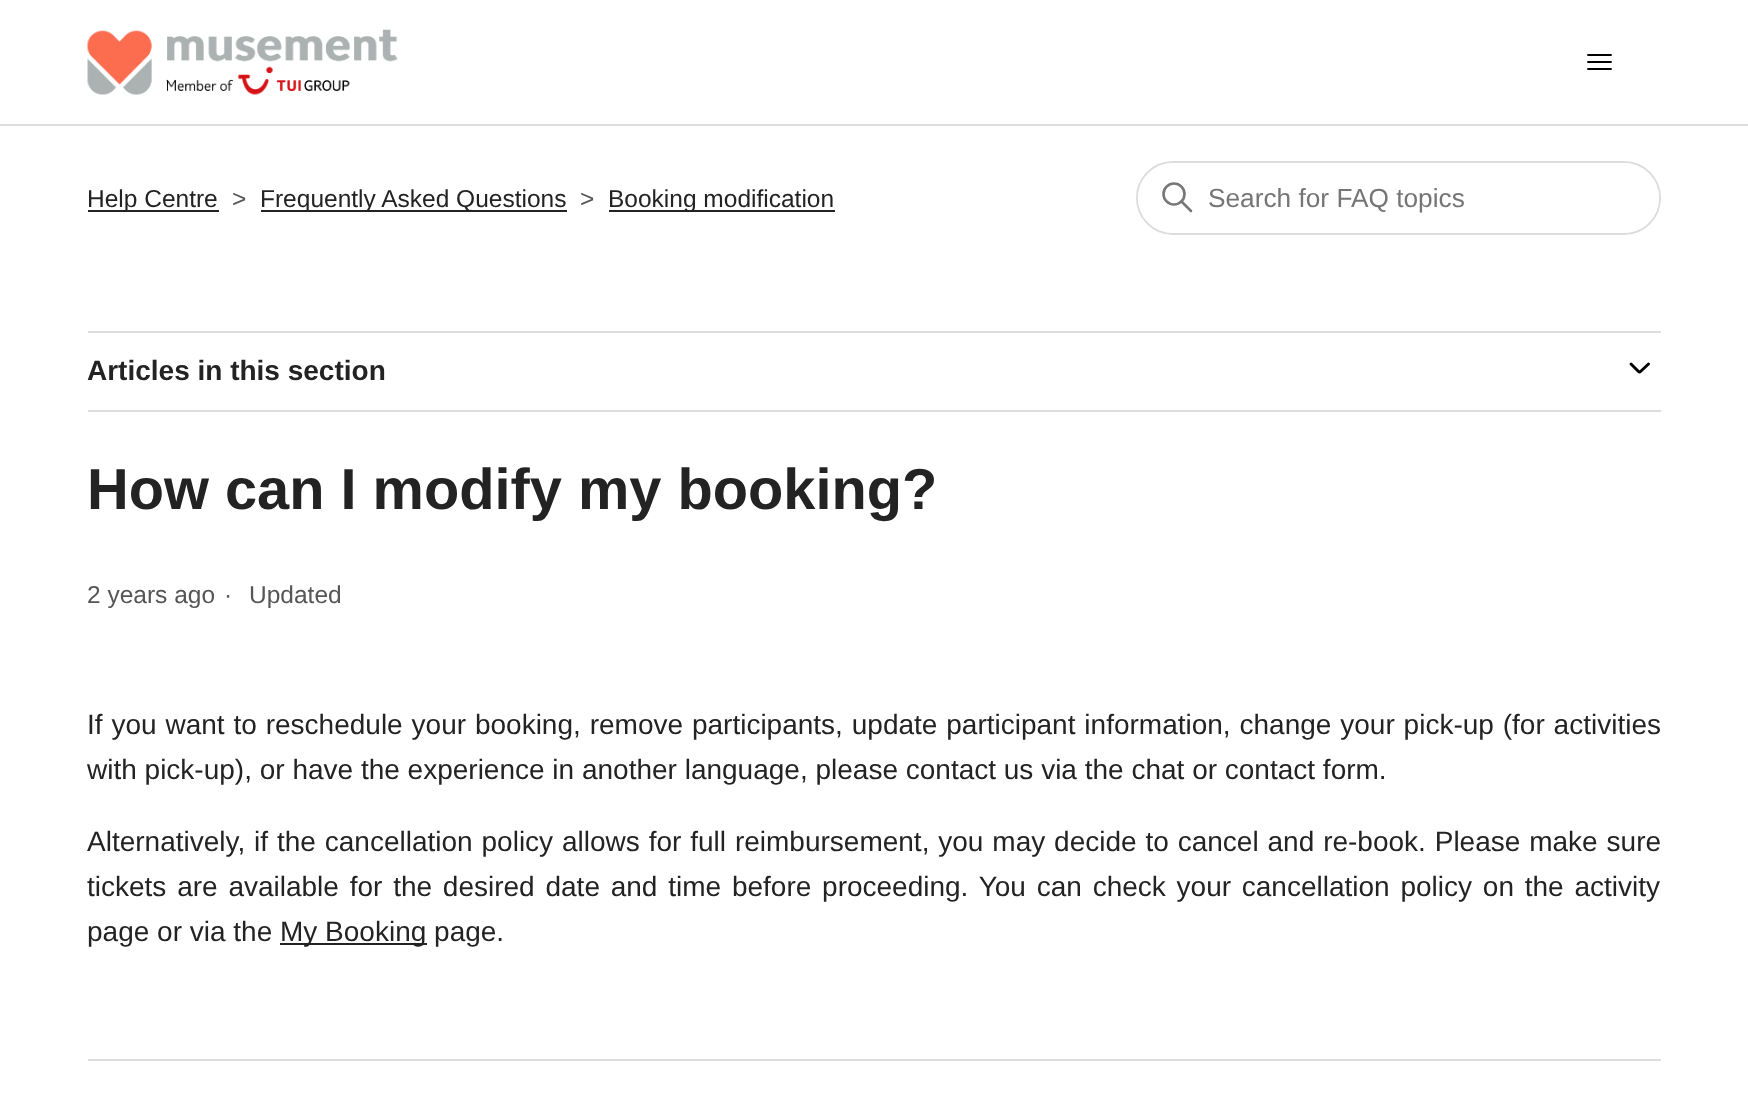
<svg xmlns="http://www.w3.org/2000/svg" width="1748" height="1101">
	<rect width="100%" height="100%" fill="#FFFFFF" />
	<image x="87" y="29" width="311" height="66" href="assets/img1.png" />
	<path d="M1588 55H1611M1588 62H1611M1588 69H1611" fill="none" stroke="#000000" stroke-width="1.8" stroke-linecap="round" />
	<rect x="0" y="124" width="1748" height="2" fill="#DDDDDD" />
	<rect x="88" y="210" width="131" height="2" fill="#232323" />
	<text x="87" y="207" font-family="Liberation Sans" font-size="24.5" fill="#232323">Help Centre</text>
	<text x="232" y="207" font-family="Liberation Sans" font-size="24.5" fill="#565656">&gt;</text>
	<rect x="261" y="210" width="306" height="2" fill="#232323" />
	<text x="260" y="207" font-family="Liberation Sans" font-size="24.5" fill="#232323">Frequently Asked Questions</text>
	<text x="580" y="207" font-family="Liberation Sans" font-size="24.5" fill="#565656">&gt;</text>
	<rect x="609" y="210" width="226" height="2" fill="#232323" />
	<text x="608" y="207" font-family="Liberation Sans" font-size="24.5" fill="#232323">Booking modification</text>
	<rect x="1137" y="162" width="523" height="72" rx="36" fill="none" stroke="#DDDDDD" stroke-width="2" />
	<rect x="1138" y="163" width="521" height="70" rx="35" fill="#FFFFFF" />
	<circle cx="1174" cy="194" r="10.5" fill="none" stroke="#777777" stroke-width="2.6" />
	<path d="M1191 211L1181.5 201.5" fill="none" stroke="#777777" stroke-width="2.6" stroke-linecap="round" />
	<text x="1208" y="207" font-family="Liberation Sans" font-size="26.25" fill="#757575">Search for FAQ topics</text>
	<rect x="88" y="331" width="1573" height="2" fill="#DDDDDD" />
	<rect x="88" y="410" width="1573" height="2" fill="#DDDDDD" />
	<text x="87" y="380" font-family="Liberation Sans" font-size="28" font-weight="700" fill="#232323">Articles in this section</text>
	<path d="M1631 364L1638.5 371.5C1639 372 1640 372 1640.5 371.5L1648.5 364" fill="none" stroke="#000000" stroke-width="2.9" stroke-linecap="round" />
	<text x="87" y="509" font-family="Liberation Sans" font-size="57.75" font-weight="700" fill="#232323">How can I modify my booking?</text>
	<g font-family="Liberation Sans" font-size="24.5" fill="#565656">
		<text x="87" y="603">2 years ago</text>
		<text x="224" y="603">·</text>
		<text x="249" y="603">Updated</text>
	</g>
	<g font-family="Liberation Sans" font-size="28" fill="#232323">
		<text x="87" y="734" word-spacing="1.1">If you want to reschedule your booking, remove participants, update participant information, change your pick-up (for activities</text>
		<text x="87" y="779">with pick-up), or have the experience in another language, please contact us via the chat or contact form.</text>
		<text x="87" y="851" word-spacing="1.1">Alternatively, if the cancellation policy allows for full reimbursement, you may decide to cancel and re-book. Please make sure</text>
		<text x="87" y="896" word-spacing="3">tickets are available for the desired date and time before proceeding. You can check your cancellation policy on the activity</text>
		<text x="87" y="941">page or via the</text>
	</g>
	<rect x="280" y="943" width="147" height="2" fill="#232323" />
	<text x="280" y="941" font-family="Liberation Sans" font-size="28" fill="#232323">My Booking page.</text>
	<rect x="88" y="1059" width="1573" height="2" fill="#DDDDDD" />
</svg>
